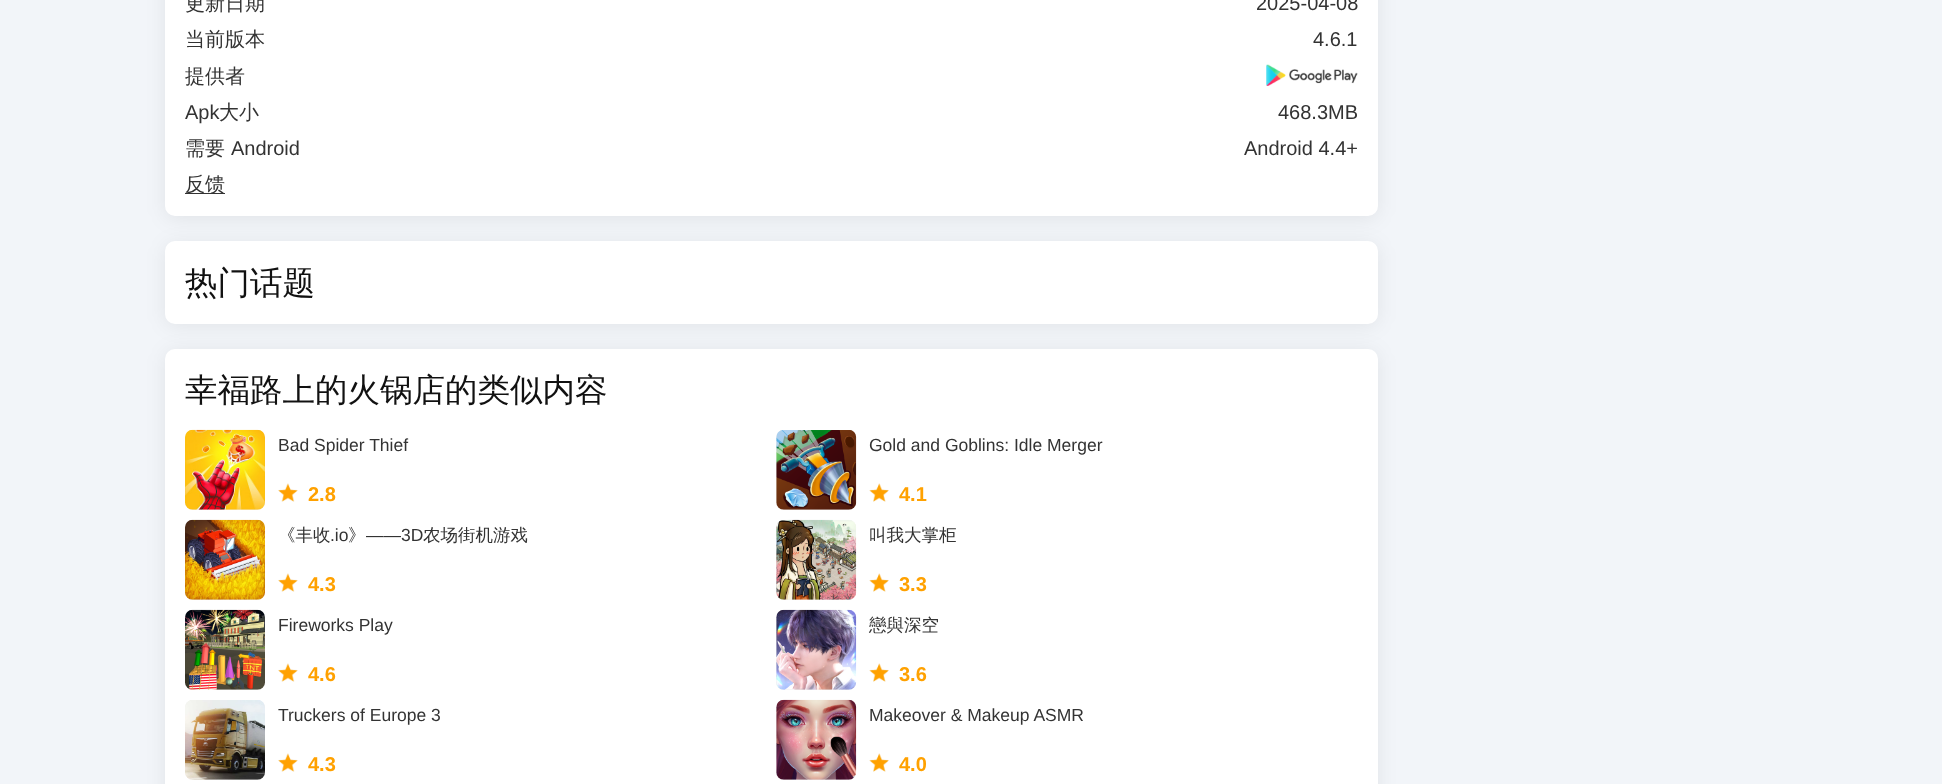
<svg xmlns="http://www.w3.org/2000/svg" width="1942" height="784">
	<rect width="100%" height="100%" fill="#F2F5F9" />
	<rect x="165" y="-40" width="1213" height="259" rx="10" fill="#000000" fill-opacity="0.07" filter="blur(10px)" />
	<rect x="165" y="-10" width="1213" height="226" rx="10" fill="#FFFFFF" />
	<text x="185" y="10" font-family="WenQuanYi Zen Hei" font-size="20" font-weight="500" fill="#333333">更新日期</text>
	<text x="1256" y="10" font-family="Liberation Sans" font-size="20" fill="#333333">2025-04-08</text>
	<text x="185" y="46" font-family="WenQuanYi Zen Hei" font-size="20" font-weight="500" fill="#333333">当前版本</text>
	<text x="1313" y="46" font-family="Liberation Sans" font-size="20" fill="#333333">4.6.1</text>
	<text x="185" y="83" font-family="WenQuanYi Zen Hei" font-size="20" font-weight="500" fill="#333333">提供者</text>
	<image x="1266" y="64" width="92" height="22" href="assets/img1.png" />
	<text x="185" y="119" font-family="Liberation Sans" font-size="20" fill="#333333">Apk</text>
	<text x="219" y="119" font-family="WenQuanYi Zen Hei" font-size="20" font-weight="500" fill="#333333">大小</text>
	<text x="1278" y="119" font-family="Liberation Sans" font-size="20" fill="#333333">468.3MB</text>
	<text x="185" y="155" font-family="WenQuanYi Zen Hei" font-size="20" font-weight="500" fill="#333333">需要</text>
	<g font-family="Liberation Sans" font-size="20" fill="#333333">
		<text x="231" y="155">Android</text>
		<text x="1244" y="155">Android 4.4+</text>
	</g>
	<rect x="185" y="193" width="40" height="1" fill="#333333" />
	<text x="185" y="191" font-family="WenQuanYi Zen Hei" font-size="20" font-weight="500" fill="#333333">反馈</text>
	<rect x="165" y="244" width="1213" height="82" rx="10" fill="#000000" fill-opacity="0.07" filter="blur(10px)" />
	<rect x="165" y="241" width="1213" height="83" rx="10" fill="#FFFFFF" />
	<text x="185" y="294" font-family="WenQuanYi Zen Hei" font-size="32.5" font-weight="500" fill="#111111">热门话题</text>
	<rect x="165" y="351" width="1213" height="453" rx="10" fill="#000000" fill-opacity="0.07" filter="blur(10px)" />
	<rect x="165" y="349" width="1213" height="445" rx="10" fill="#FFFFFF" />
	<text x="185" y="401" font-family="WenQuanYi Zen Hei" font-size="32.5" font-weight="500" fill="#111111">幸福路上的火锅店的类似内容</text>
	<rect x="185" y="430" width="80" height="80" rx="8" fill="#EEEEEE" />
	<image x="185" y="429" width="80" height="81" href="assets/img2.png" />
	<text x="278" y="451" font-family="Liberation Sans" font-size="17.5" fill="#333333">Bad Spider Thief</text>
	<image x="278" y="483" width="20" height="19" href="assets/img3.png" />
	<text x="308" y="501" font-family="Liberation Sans" font-size="20" font-weight="700" fill="#FFA100">2.8</text>
	<rect x="776" y="430" width="80" height="80" rx="8" fill="#EEEEEE" />
	<image x="776" y="430" width="81" height="80" href="assets/img4.png" />
	<text x="869" y="451" font-family="Liberation Sans" font-size="17.5" fill="#333333">Gold and Goblins: Idle Merger</text>
	<image x="869" y="483" width="20" height="19" href="assets/img5.png" />
	<text x="899" y="501" font-family="Liberation Sans" font-size="20" font-weight="700" fill="#FFA100">4.1</text>
	<rect x="185" y="520" width="80" height="80" rx="8" fill="#EEEEEE" />
	<image x="185" y="519" width="80" height="81" href="assets/img6.png" />
	<text x="278" y="541" font-family="WenQuanYi Zen Hei" font-size="17.5" font-weight="500" fill="#333333">《丰收</text>
	<text x="330" y="541" font-family="Liberation Sans" font-size="17.5" fill="#333333">.io</text>
	<text x="348" y="541" font-family="WenQuanYi Zen Hei" font-size="17.5" font-weight="500" fill="#333333">》</text>
	<text x="366" y="541" font-family="Liberation Sans" font-size="17.5" fill="#333333">——3D</text>
	<text x="423" y="541" font-family="WenQuanYi Zen Hei" font-size="17.5" font-weight="500" fill="#333333">农场街机游戏</text>
	<image x="278" y="573" width="20" height="19" href="assets/img3.png" />
	<text x="308" y="591" font-family="Liberation Sans" font-size="20" font-weight="700" fill="#FFA100">4.3</text>
	<rect x="776" y="520" width="80" height="80" rx="8" fill="#EEEEEE" />
	<image x="776" y="519" width="81" height="81" href="assets/img7.png" />
	<text x="869" y="541" font-family="WenQuanYi Zen Hei" font-size="17.5" font-weight="500" fill="#333333">叫我大掌柜</text>
	<image x="869" y="573" width="20" height="19" href="assets/img5.png" />
	<text x="899" y="591" font-family="Liberation Sans" font-size="20" font-weight="700" fill="#FFA100">3.3</text>
	<rect x="185" y="610" width="80" height="80" rx="8" fill="#EEEEEE" />
	<image x="185" y="609" width="80" height="81" href="assets/img8.png" />
	<text x="278" y="631" font-family="Liberation Sans" font-size="17.5" fill="#333333">Fireworks Play</text>
	<image x="278" y="663" width="20" height="19" href="assets/img3.png" />
	<text x="308" y="681" font-family="Liberation Sans" font-size="20" font-weight="700" fill="#FFA100">4.6</text>
	<rect x="776" y="610" width="80" height="80" rx="8" fill="#EEEEEE" />
	<image x="776" y="609" width="81" height="81" href="assets/img9.png" />
	<text x="869" y="631" font-family="WenQuanYi Zen Hei" font-size="17.5" font-weight="500" fill="#333333">戀與深空</text>
	<image x="869" y="663" width="20" height="19" href="assets/img5.png" />
	<text x="899" y="681" font-family="Liberation Sans" font-size="20" font-weight="700" fill="#FFA100">3.6</text>
	<rect x="185" y="700" width="80" height="80" rx="8" fill="#EEEEEE" />
	<image x="185" y="700" width="80" height="80" href="assets/img10.png" />
	<text x="278" y="721" font-family="Liberation Sans" font-size="17.5" fill="#333333">Truckers of Europe 3</text>
	<image x="278" y="753" width="20" height="19" href="assets/img3.png" />
	<text x="308" y="771" font-family="Liberation Sans" font-size="20" font-weight="700" fill="#FFA100">4.3</text>
	<rect x="776" y="700" width="80" height="80" rx="8" fill="#EEEEEE" />
	<image x="776" y="699" width="81" height="81" href="assets/img11.png" />
	<text x="869" y="721" font-family="Liberation Sans" font-size="17.5" fill="#333333">Makeover &amp; Makeup ASMR</text>
	<image x="869" y="753" width="20" height="19" href="assets/img5.png" />
	<text x="899" y="771" font-family="Liberation Sans" font-size="20" font-weight="700" fill="#FFA100">4.0</text>
</svg>
